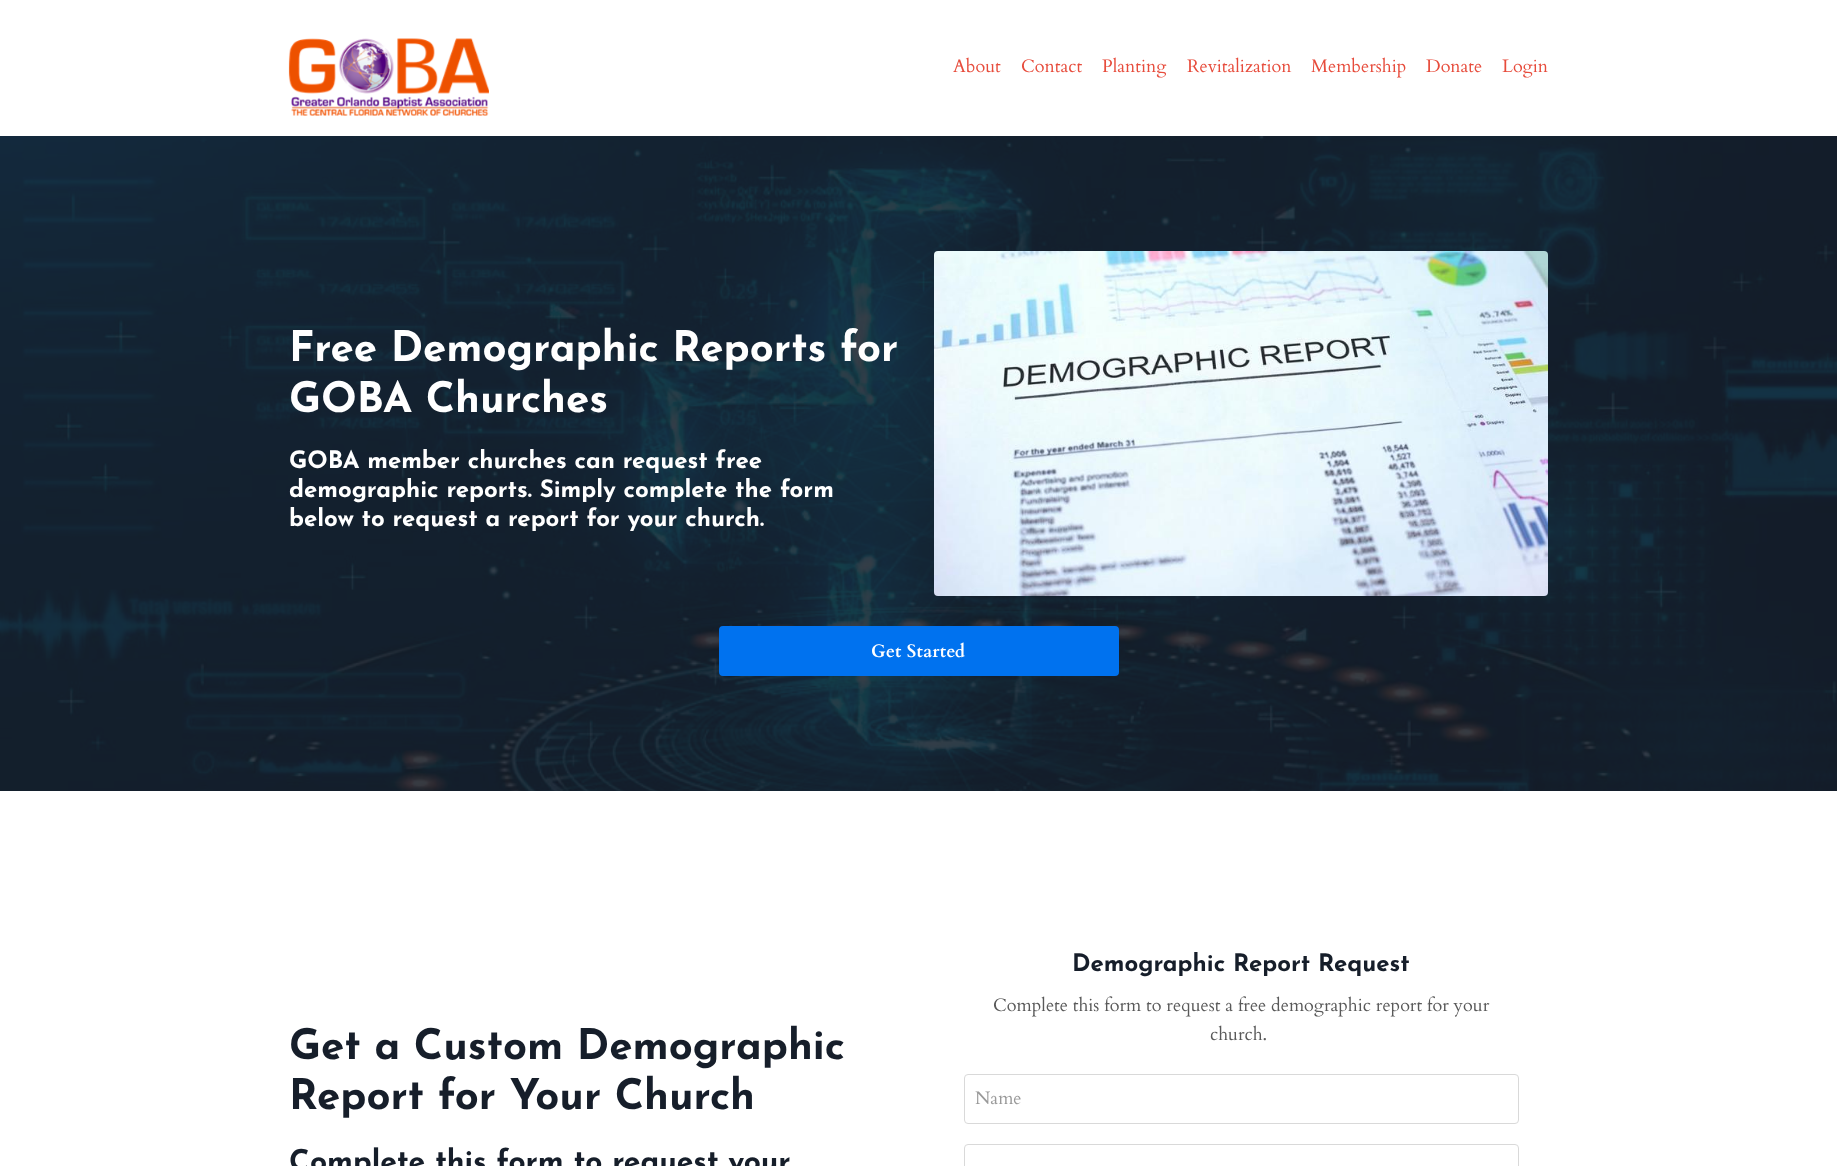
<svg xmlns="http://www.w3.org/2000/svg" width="1837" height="1166">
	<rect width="100%" height="100%" fill="#FFFFFF" />
	<image x="288" y="38" width="201" height="78" href="assets/img1.png" />
	<g font-family="Cardo" font-size="18" fill="#E74C3C">
		<text x="953" y="72">About</text>
		<text x="1021" y="72">Contact</text>
		<text x="1102" y="72">Planting</text>
		<text x="1187" y="72">Revitalization</text>
		<text x="1311" y="72">Membership</text>
		<text x="1426" y="72">Donate</text>
		<text x="1502" y="72">Login</text>
	</g>
	<image x="0" y="136" width="1837" height="655" href="assets/img2.png" />
	<g font-family="Josefin Sans" font-size="42" font-weight="700" fill="#FFFFFF">
		<text x="289" y="361">Free Demographic Reports for</text>
		<text x="289" y="412">GOBA Churches</text>
	</g>
	<g font-family="Josefin Sans" font-size="24" font-weight="700" fill="#FFFFFF">
		<text x="289" y="468">GOBA member churches can request free</text>
		<text x="289" y="497">demographic reports. Simply complete the form</text>
		<text x="289" y="526">below to request a report for your church.</text>
	</g>
	<image x="934" y="251" width="614" height="345" href="assets/img3.png" />
	<rect x="720" y="627" width="398" height="48" rx="3" fill="#0072EF" stroke="#0072EF" stroke-width="2" />
	<text x="871" y="657" font-family="Cardo" font-size="18" font-weight="700" letter-spacing="0.25" fill="#FFFFFF">Get Started</text>
	<g font-family="Josefin Sans" font-size="42" font-weight="700" fill="#161E2A">
		<text x="289" y="1059">Get a Custom Demographic</text>
		<text x="289" y="1109">Report for Your Church</text>
	</g>
	<text x="289" y="1171" font-family="Josefin Sans" font-size="30" font-weight="700" fill="#161E2A">Complete this form to request your</text>
	<text x="1072" y="971" font-family="Josefin Sans" font-size="24" font-weight="700" fill="#161E2A">Demographic Report Request</text>
	<g font-family="Cardo" font-size="18" fill="#595959">
		<text x="993" y="1011">Complete this form to request a free demographic report for your</text>
		<text x="1210" y="1040">church.</text>
	</g>
	<rect x="964.5" y="1074.5" width="554" height="49" rx="3.5" fill="none" stroke="#D9D9D9" />
	<text x="975" y="1104" font-family="Cardo" font-size="18" fill="#999999">Name</text>
	<rect x="964.5" y="1144.5" width="554" height="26" rx="3.5" fill="none" stroke="#D9D9D9" />
</svg>
